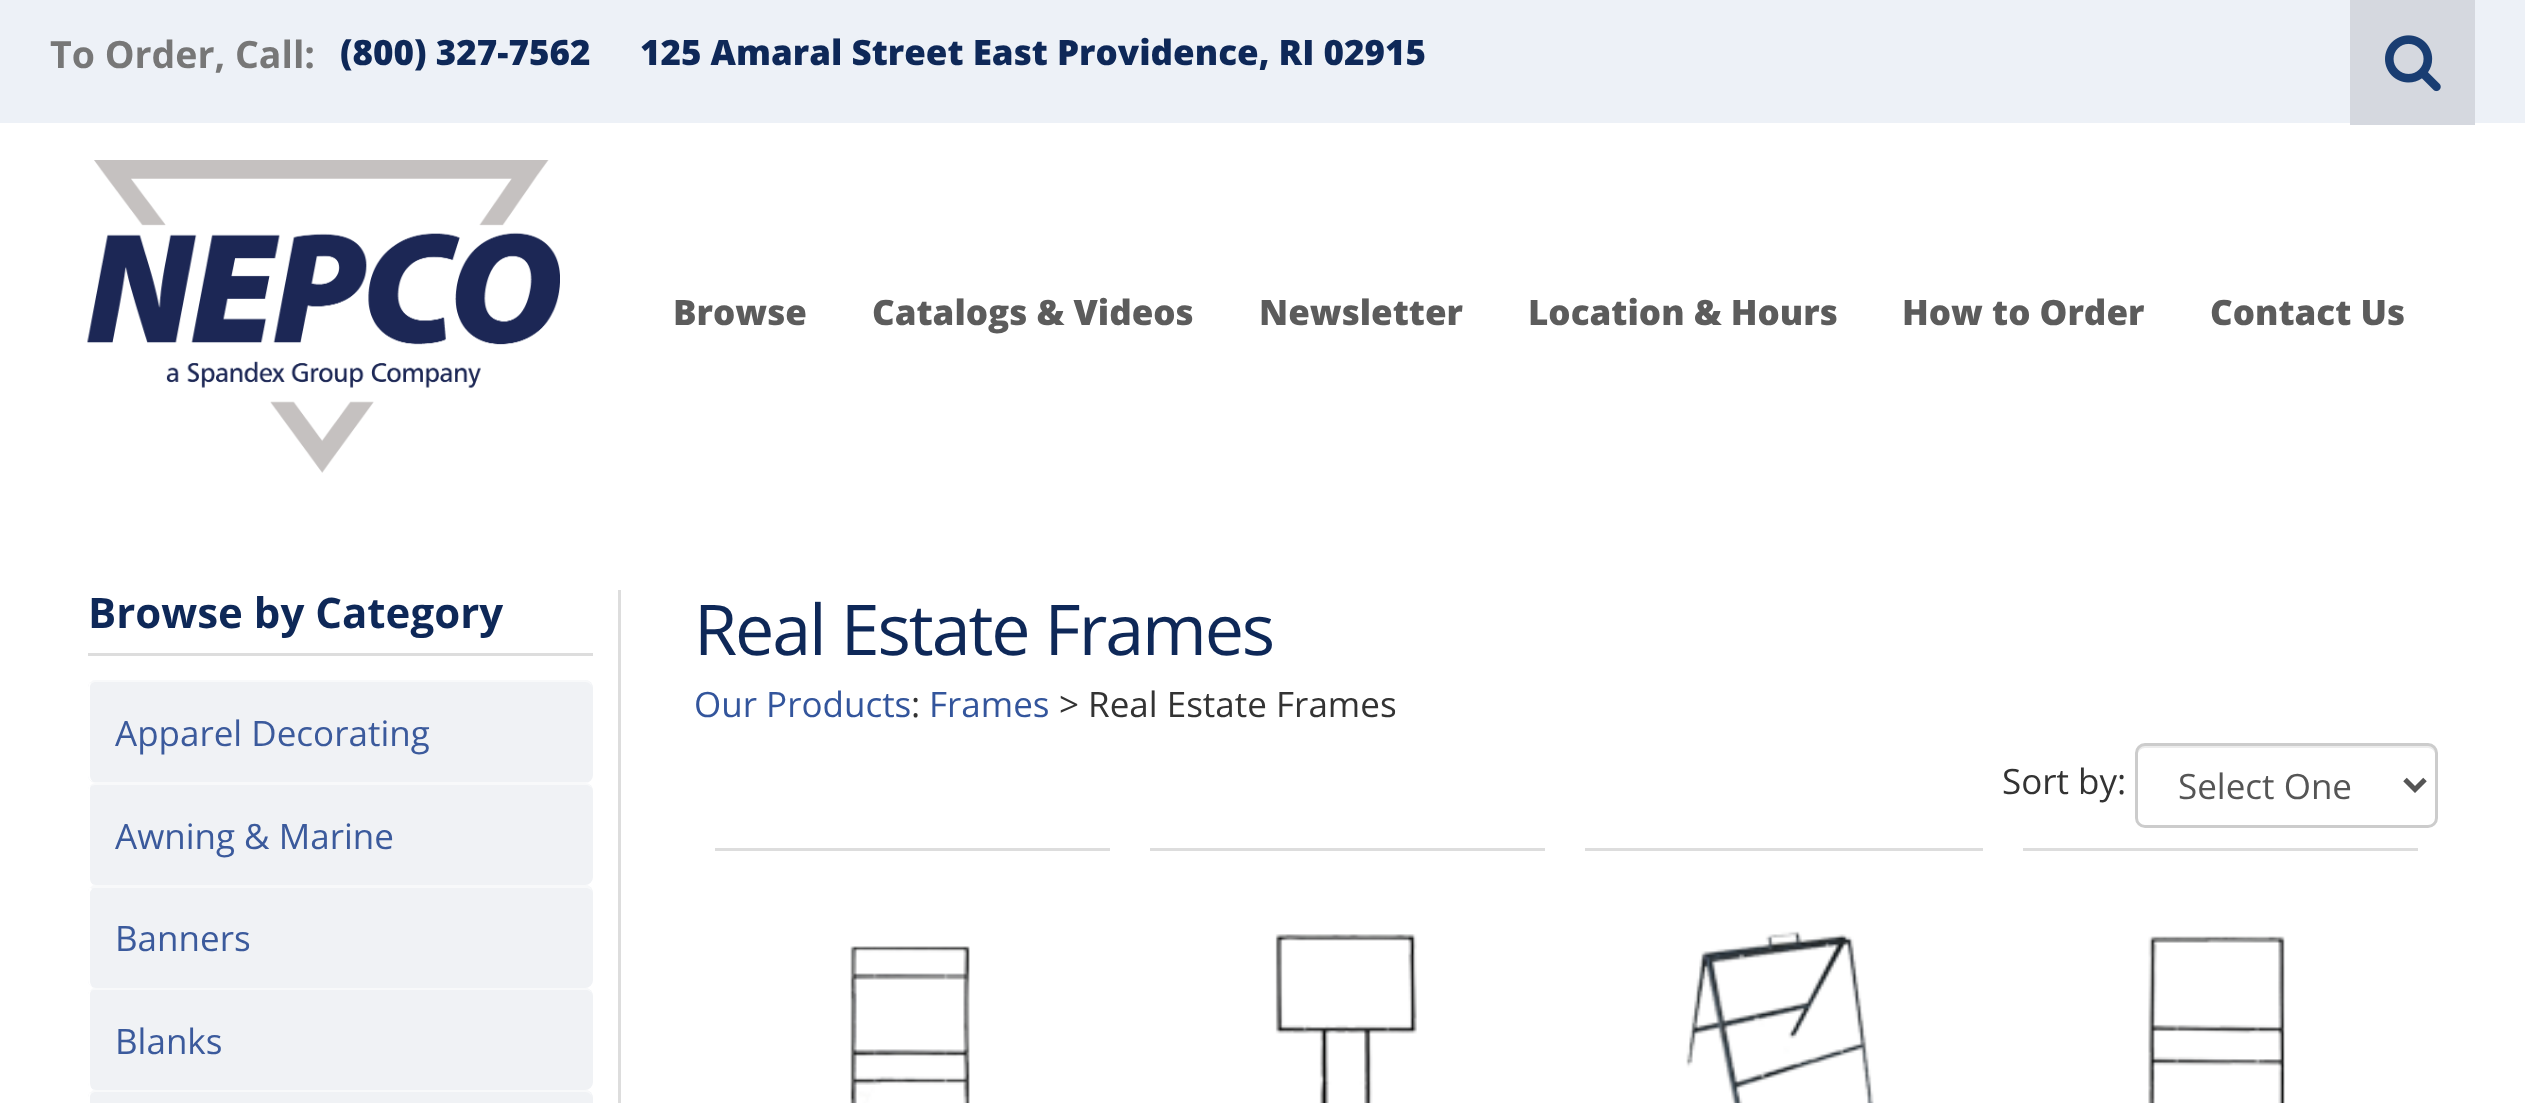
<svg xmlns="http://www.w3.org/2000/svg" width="2525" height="1103">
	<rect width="100%" height="100%" fill="#FFFFFF" />
	<rect x="0" y="0" width="2525" height="123" fill="#EDF1F7" />
	<text x="50" y="68" font-family="Open Sans" font-size="37.5" font-weight="700" fill="#777777">To Order, Call:</text>
	<g font-family="Open Sans" font-size="35" font-weight="800" fill="#0E2858">
		<text x="340" y="65">(800) 327-7562</text>
		<text x="640" y="65">125 Amaral Street East Providence, RI 02915</text>
	</g>
	<rect x="2350" y="0" width="125" height="125" fill="#D5D8DF" />
	<image x="2385" y="35" width="56" height="57" href="assets/img1.png" />
	<image x="87" y="160" width="473" height="313" href="assets/img2.png" />
	<g font-family="Open Sans" font-size="35" font-weight="800" fill="#5C5C5C">
		<text x="673" y="325">Browse</text>
		<text x="872" y="325">Catalogs &amp; Videos</text>
		<text x="1259" y="325">Newsletter</text>
		<text x="1528" y="325">Location &amp; Hours</text>
		<text x="1902" y="325">How to Order</text>
		<text x="2210" y="325">Contact Us</text>
	</g>
	<rect x="618" y="590" width="3" height="513" fill="#DDDDDD" />
	<rect x="88" y="653" width="505" height="3" fill="#DDDDDD" />
	<text x="88" y="628" font-family="Open Sans" font-size="42" font-weight="700" fill="#0E2858">Browse by Category</text>
	<rect x="88" y="680" width="505" height="103" rx="8" fill="#F0F2F5" />
	<path d="M95 680H585C589 680 592 683 592 688C592 685 589 682 585 682H95C94 682 92 683 91 684L90 682C91 681 93 680 95 680Z" fill="#FFFFFF" fill-opacity="0.5" />
	<path d="M90 682L91 684C90 685 90 686 90 688V775C90 779 92 782 95 782C91 782 88 779 88 775V688C88 686 89 684 90 682Z" fill="#FFFFFF" />
	<text x="115" y="746" font-family="Open Sans" font-size="35" fill="#3B5A9C">Apparel Decorating</text>
	<rect x="88" y="783" width="505" height="102" rx="8" fill="#F0F2F5" />
	<path d="M95 785C94 785 92 786 91 786L90 785L93 782H587C590 784 592 787 592 790C592 787 589 785 585 785Z" fill="#FFFFFF" fill-opacity="0.5" />
	<path d="M91 786C90 787 90 788 90 790V878C90 882 92 885 95 885C91 885 88 882 88 878V790C88 788 89 786 90 785Z" fill="#FFFFFF" />
	<text x="115" y="849" font-family="Open Sans" font-size="35" fill="#3B5A9C">Awning &amp; Marine</text>
	<rect x="88" y="885" width="505" height="103" rx="8" fill="#F0F2F5" />
	<path d="M95 885H585C589 885 592 888 592 892C592 890 589 888 585 888H95C94 888 92 888 92 889L90 887C91 886 93 885 95 885Z" fill="#FFFFFF" fill-opacity="0.5" />
	<path d="M93 988C90 986 88 983 88 980V892C88 890 89 888 90 887L92 889L90 892V981C90 983 91 986 93 988Z" fill="#FFFFFF" />
	<text x="115" y="951" font-family="Open Sans" font-size="35" fill="#3B5A9C">Banners</text>
	<rect x="88" y="988" width="505" height="102" rx="8" fill="#F0F2F5" />
	<path d="M95 988H585C589 988 592 991 592 995C592 992 589 990 585 990H95C94 990 92 990 91 991L90 990C91 989 93 988 95 988Z" fill="#FFFFFF" fill-opacity="0.5" />
	<path d="M91 991C90 992 90 994 90 995V1082C90 1087 92 1090 95 1090C91 1090 88 1087 88 1082V995C88 993 89 991 90 990Z" fill="#FFFFFF" />
	<text x="115" y="1054" font-family="Open Sans" font-size="35" fill="#3B5A9C">Blanks</text>
	<rect x="88" y="1090" width="505" height="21" rx="8" fill="#F0F2F5" />
	<path d="M95 1090H585C589 1090 592 1093 592 1098C592 1095 589 1092 585 1092H95C94 1092 92 1093 91 1094L90 1092C91 1091 93 1090 95 1090Z" fill="#FFFFFF" fill-opacity="0.5" />
	<path d="M90 1092L91 1094C90 1095 90 1096 90 1098V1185C90 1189 92 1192 95 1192C91 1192 88 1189 88 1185V1098C88 1096 89 1094 90 1092Z" fill="#FFFFFF" />
	<text x="694" y="655" font-family="Open Sans" font-size="70" letter-spacing="-2.1" fill="#0E2858">Real Estate Frames</text>
	<text x="694" y="717" font-family="Open Sans" font-size="35" fill="#33559C">Our Products</text>
	<text x="911" y="717" font-family="Open Sans" font-size="35" fill="#333333">:</text>
	<text x="929" y="717" font-family="Open Sans" font-size="35" fill="#33559C">Frames</text>
	<g font-family="Open Sans" font-size="35" fill="#333333">
		<text x="1059" y="717">&gt; Real Estate Frames</text>
		<text x="2002" y="794">Sort by:</text>
	</g>
	<path d="M2145 748H2428C2432 748 2435 751 2435 755C2435 751 2434 746 2429 745H2146C2140 745 2138 750 2138 755C2138 751 2141 748 2145 748Z" fill="#ECECEC" />
	<rect x="2136.5" y="744.5" width="300" height="82" rx="8.5" fill="none" stroke="#CCCCCC" stroke-width="3" />
	<path d="M2405 779.5L2415 789.5L2425 779.5" fill="none" stroke="#555555" stroke-width="5" />
	<text x="2178" y="799" font-family="Open Sans" font-size="35" fill="#555555">Select One</text>
	<rect x="715" y="848" width="395" height="3" fill="#DDDDDD" />
	<image x="850" y="946" width="120" height="157" href="assets/img3.png" />
	<rect x="1150" y="848" width="395" height="3" fill="#DDDDDD" />
	<image x="1275" y="934" width="142" height="169" href="assets/img4.png" />
	<rect x="1585" y="848" width="398" height="3" fill="#DDDDDD" />
	<image x="1686" y="931" width="188" height="172" href="assets/img5.png" />
	<rect x="2023" y="848" width="395" height="3" fill="#DDDDDD" />
	<image x="2148" y="936" width="137" height="167" href="assets/img6.png" />
</svg>
